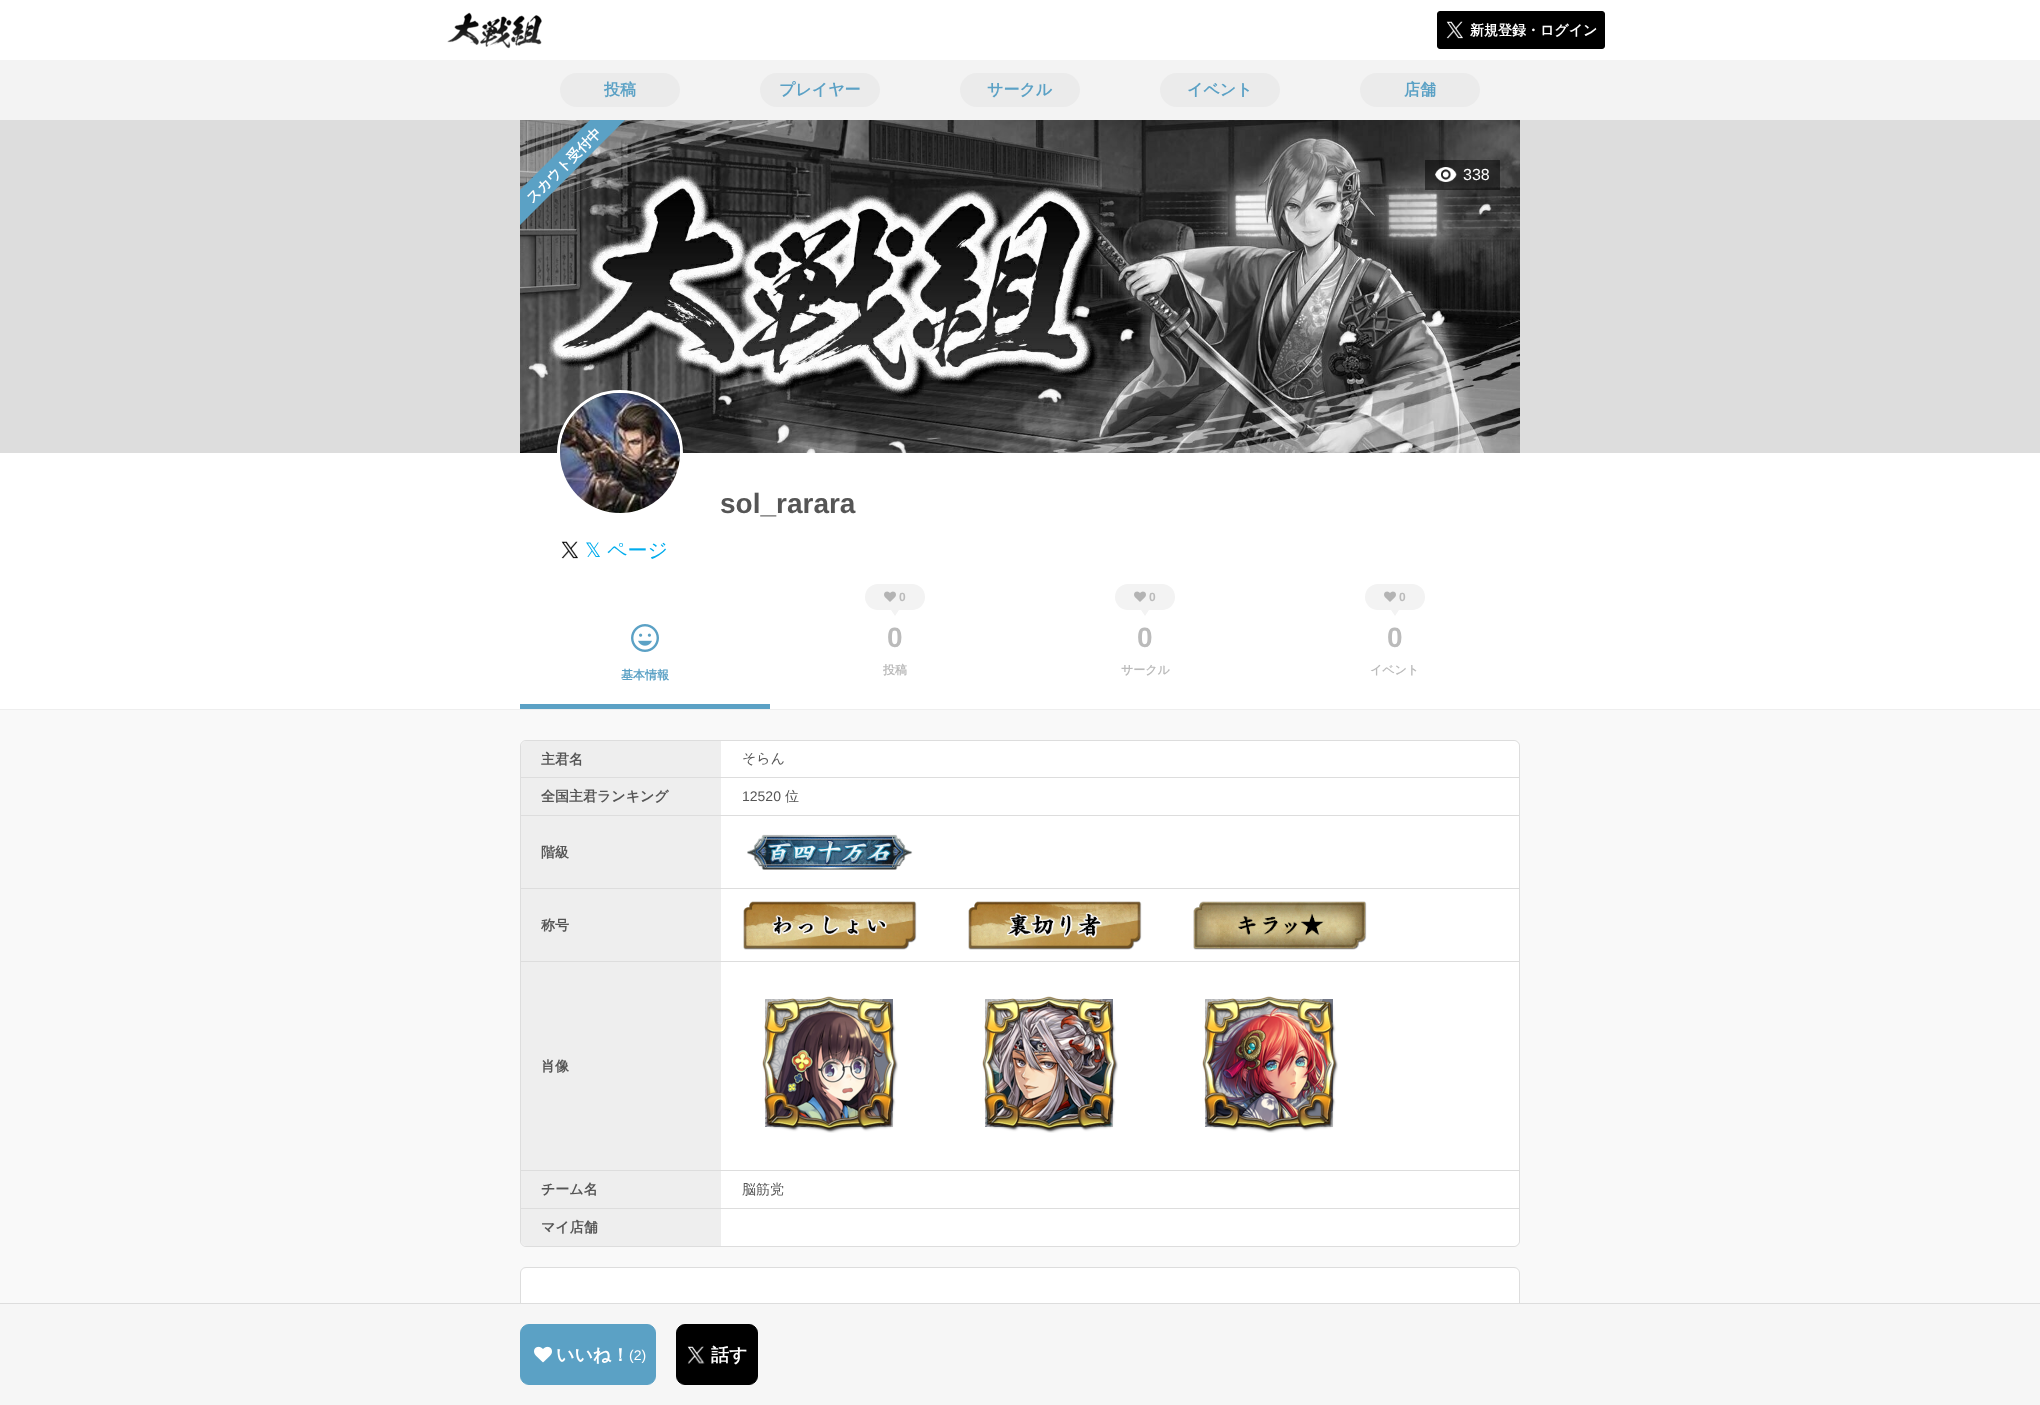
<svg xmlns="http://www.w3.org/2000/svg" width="2040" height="1405">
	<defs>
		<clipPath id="clip1"><rect x="520" y="120" width="1000" height="333" /></clipPath>
	</defs>
	<rect width="100%" height="100%" fill="#F9F9F9" />
	<rect x="0" y="0" width="2040" height="60" fill="#FFFFFF" />
	<image x="447" y="12" width="95" height="37" href="assets/img1.png" />
	<rect x="1437.5" y="11.5" width="167" height="37" rx="2.5" fill="#000000" stroke="#000000" />
	<image x="1446" y="21" width="17" height="18" href="assets/img2.png" />
	<text x="1470" y="35" font-family="WenQuanYi Zen Hei" font-size="14" font-weight="700" fill="#FFFFFF">新規登録・ログイン</text>
	<rect x="0" y="60" width="2040" height="60" fill="#F3F3F3" />
	<rect x="560" y="73" width="120" height="34" rx="17" fill="#EBEBEB" />
	<text x="604" y="95" font-family="WenQuanYi Zen Hei" font-size="16" font-weight="700" fill="#5BA1C5">投稿</text>
	<rect x="760" y="73" width="120" height="34" rx="17" fill="#EBEBEB" />
	<text x="779" y="95" font-family="WenQuanYi Zen Hei" font-size="16" font-weight="700" fill="#5BA1C5">プレイヤー</text>
	<rect x="960" y="73" width="120" height="34" rx="17" fill="#EBEBEB" />
	<text x="987" y="95" font-family="WenQuanYi Zen Hei" font-size="16" font-weight="700" fill="#5BA1C5">サークル</text>
	<rect x="1160" y="73" width="120" height="34" rx="17" fill="#EBEBEB" />
	<text x="1187" y="95" font-family="WenQuanYi Zen Hei" font-size="16" font-weight="700" fill="#5BA1C5">イベント</text>
	<rect x="1360" y="73" width="120" height="34" rx="17" fill="#EBEBEB" />
	<text x="1404" y="95" font-family="WenQuanYi Zen Hei" font-size="16" font-weight="700" fill="#5BA1C5">店舗</text>
	<rect x="0" y="120" width="2040" height="333" fill="#DDDDDD" />
	<image x="520" y="120" width="1000" height="333" href="assets/img3.png" />
	<g clip-path="url(#clip1)">
		<path d="M501 209L607 103L625 120L519 226Z" fill="#5BA1C5" />
	</g>
	<text x="532" y="204" transform="rotate(-45 532 204)" font-family="WenQuanYi Zen Hei" font-size="14" font-weight="700" fill="#FFFFFF">スカウト受付中</text>
	<rect x="1425" y="160" width="75" height="30" fill="#000000" fill-opacity="0.5" />
	<image x="1435" y="167" width="22" height="15" href="assets/img4.png" />
	<text x="1463" y="180" font-family="Liberation Sans" font-size="16" fill="#FFFFFF">338</text>
	<rect x="0" y="453" width="2040" height="256" fill="#FFFFFF" />
	<circle cx="620" cy="453" r="61.5" fill="none" stroke="#FFFFFF" stroke-width="3" />
	<image x="560" y="393" width="120" height="120" href="assets/img5.png" />
	<text x="720" y="513" font-family="Liberation Sans" font-size="28" font-weight="700" fill="#555555">sol_rarara</text>
	<image x="561" y="541" width="17" height="18" href="assets/img6.png" />
	<text x="585" y="557" font-family="DejaVu Sans" font-size="20" fill="#00ACED">𝕏</text>
	<text x="607" y="557" font-family="WenQuanYi Zen Hei" font-size="20" font-weight="500" fill="#00ACED">ページ</text>
	<rect x="0" y="709" width="2040" height="1" fill="#EEEEEE" />
	<image x="631" y="624" width="28" height="28" href="assets/img7.png" />
	<text x="621" y="679" font-family="WenQuanYi Zen Hei" font-size="12" font-weight="700" fill="#5BA1C5">基本情報</text>
	<rect x="520" y="704" width="250" height="5" fill="#5BA1C5" />
	<rect x="865" y="584" width="60" height="26" rx="13" fill="#F3F3F3" />
	<image x="884" y="591" width="12" height="11" href="assets/img8.png" />
	<text x="899" y="601" font-family="Liberation Sans" font-size="12" font-weight="700" fill="#BBBBBB">0</text>
	<path d="M891 610H899L895 616Z" fill="#F3F3F3" />
	<text x="887" y="647" font-family="Liberation Sans" font-size="28" font-weight="700" fill="#BBBBBB">0</text>
	<text x="883" y="674" font-family="WenQuanYi Zen Hei" font-size="12" font-weight="700" fill="#BBBBBB">投稿</text>
	<rect x="1115" y="584" width="60" height="26" rx="13" fill="#F3F3F3" />
	<image x="1134" y="591" width="12" height="11" href="assets/img8.png" />
	<text x="1149" y="601" font-family="Liberation Sans" font-size="12" font-weight="700" fill="#BBBBBB">0</text>
	<path d="M1141 610H1149L1145 616Z" fill="#F3F3F3" />
	<text x="1137" y="647" font-family="Liberation Sans" font-size="28" font-weight="700" fill="#BBBBBB">0</text>
	<text x="1121" y="674" font-family="WenQuanYi Zen Hei" font-size="12" font-weight="700" fill="#BBBBBB">サークル</text>
	<rect x="1365" y="584" width="60" height="26" rx="13" fill="#F3F3F3" />
	<image x="1384" y="591" width="12" height="11" href="assets/img8.png" />
	<text x="1399" y="601" font-family="Liberation Sans" font-size="12" font-weight="700" fill="#BBBBBB">0</text>
	<path d="M1391 610H1399L1395 616Z" fill="#F3F3F3" />
	<text x="1387" y="647" font-family="Liberation Sans" font-size="28" font-weight="700" fill="#BBBBBB">0</text>
	<text x="1370" y="674" font-family="WenQuanYi Zen Hei" font-size="12" font-weight="700" fill="#BBBBBB">イベント</text>
	<rect x="520.5" y="740.5" width="999" height="506" rx="5.5" fill="none" stroke="#DDDDDD" />
	<path d="M527 741H721V778H521V747C521 743.5 523.5 741 527 741Z" fill="#EEEEEE" />
	<rect x="521" y="777" width="200" height="1" fill="#DDDDDD" />
	<text x="541" y="764" font-family="WenQuanYi Zen Hei" font-size="14" font-weight="700" fill="#555555">主君名</text>
	<path d="M721 741H1513C1516.5 741 1519 743.5 1519 747V778H721Z" fill="#FFFFFF" />
	<rect x="721" y="777" width="798" height="1" fill="#DDDDDD" />
	<text x="742" y="763" font-family="WenQuanYi Zen Hei" font-size="14" font-weight="500" fill="#555555">そらん</text>
	<rect x="521" y="778" width="200" height="37" fill="#EEEEEE" />
	<rect x="521" y="815" width="998" height="1" fill="#DDDDDD" />
	<text x="541" y="801" font-family="WenQuanYi Zen Hei" font-size="14" font-weight="700" fill="#555555">全国主君ランキング</text>
	<rect x="721" y="778" width="798" height="37" fill="#FFFFFF" />
	<text x="742" y="801" font-family="Liberation Sans" font-size="14" fill="#555555">12520</text>
	<text x="785" y="801" font-family="WenQuanYi Zen Hei" font-size="14" font-weight="500" fill="#555555">位</text>
	<rect x="521" y="816" width="200" height="72" fill="#EEEEEE" />
	<rect x="521" y="888" width="998" height="1" fill="#DDDDDD" />
	<text x="541" y="857" font-family="WenQuanYi Zen Hei" font-size="14" font-weight="700" fill="#555555">階級</text>
	<rect x="721" y="816" width="798" height="72" fill="#FFFFFF" />
	<image x="747" y="834" width="166" height="36" href="assets/img9.png" />
	<rect x="521" y="889" width="200" height="72" fill="#EEEEEE" />
	<rect x="521" y="961" width="998" height="1" fill="#DDDDDD" />
	<text x="541" y="930" font-family="WenQuanYi Zen Hei" font-size="14" font-weight="700" fill="#555555">称号</text>
	<rect x="721" y="889" width="798" height="72" fill="#FFFFFF" />
	<image x="743" y="901" width="174" height="49" href="assets/img10.png" />
	<image x="968" y="901" width="174" height="49" href="assets/img11.png" />
	<image x="1193" y="901" width="174" height="49" href="assets/img12.png" />
	<rect x="521" y="962" width="200" height="208" fill="#EEEEEE" />
	<rect x="521" y="1170" width="998" height="1" fill="#DDDDDD" />
	<text x="541" y="1071" font-family="WenQuanYi Zen Hei" font-size="14" font-weight="700" fill="#555555">肖像</text>
	<rect x="721" y="962" width="798" height="208" fill="#FFFFFF" />
	<image x="765" y="999" width="128" height="128" href="assets/img14.png" />
	<image x="765" y="1010" width="128" height="117" href="assets/img15.png" />
	<image x="762" y="996" width="136" height="137" href="assets/img13.png" />
	<image x="985" y="999" width="128" height="128" href="assets/img14.png" />
	<image x="985" y="999" width="128" height="128" href="assets/img17.png" />
	<image x="982" y="996" width="136" height="137" href="assets/img16.png" />
	<image x="1205" y="999" width="128" height="128" href="assets/img14.png" />
	<image x="1205" y="1006" width="128" height="121" href="assets/img19.png" />
	<image x="1202" y="996" width="136" height="137" href="assets/img18.png" />
	<rect x="521" y="1171" width="200" height="37" fill="#EEEEEE" />
	<rect x="521" y="1208" width="998" height="1" fill="#DDDDDD" />
	<text x="541" y="1194" font-family="WenQuanYi Zen Hei" font-size="14" font-weight="700" fill="#555555">チーム名</text>
	<rect x="721" y="1171" width="798" height="37" fill="#FFFFFF" />
	<text x="742" y="1194" font-family="WenQuanYi Zen Hei" font-size="14" font-weight="500" fill="#555555">脳筋党</text>
	<path d="M521 1209H721V1246H527C523.5 1246 521 1243.5 521 1240Z" fill="#EEEEEE" />
	<text x="541" y="1232" font-family="WenQuanYi Zen Hei" font-size="14" font-weight="700" fill="#555555">マイ店舗</text>
	<path d="M721 1209H1519V1240C1519 1243.5 1516.5 1246 1513 1246H721Z" fill="#FFFFFF" />
	<rect x="520.5" y="1267.5" width="999" height="95" rx="5.5" fill="#FFFFFF" stroke="#DDDDDD" />
	<rect x="0" y="1304" width="2040" height="101" fill="#F6F6F6" />
	<rect x="0" y="1303" width="2040" height="1" fill="#DDDDDD" />
	<rect x="520.5" y="1324.5" width="135" height="60" rx="8.5" fill="#5BA1C5" stroke="#5BA1C5" />
	<image x="534" y="1346" width="18" height="17" href="assets/img20.png" />
	<text x="556" y="1361" font-family="WenQuanYi Zen Hei" font-size="18" font-weight="700" fill="#FFFFFF">いいね！</text>
	<text x="629" y="1360" font-family="Liberation Sans" font-size="14" fill="#FFFFFF">(2)</text>
	<rect x="676.5" y="1324.5" width="81" height="60" rx="8.5" fill="#000000" stroke="#000000" />
	<image x="687" y="1346" width="18" height="18" href="assets/img21.png" />
	<text x="711" y="1361" font-family="WenQuanYi Zen Hei" font-size="18" font-weight="700" fill="#FFFFFF">話す</text>
</svg>
